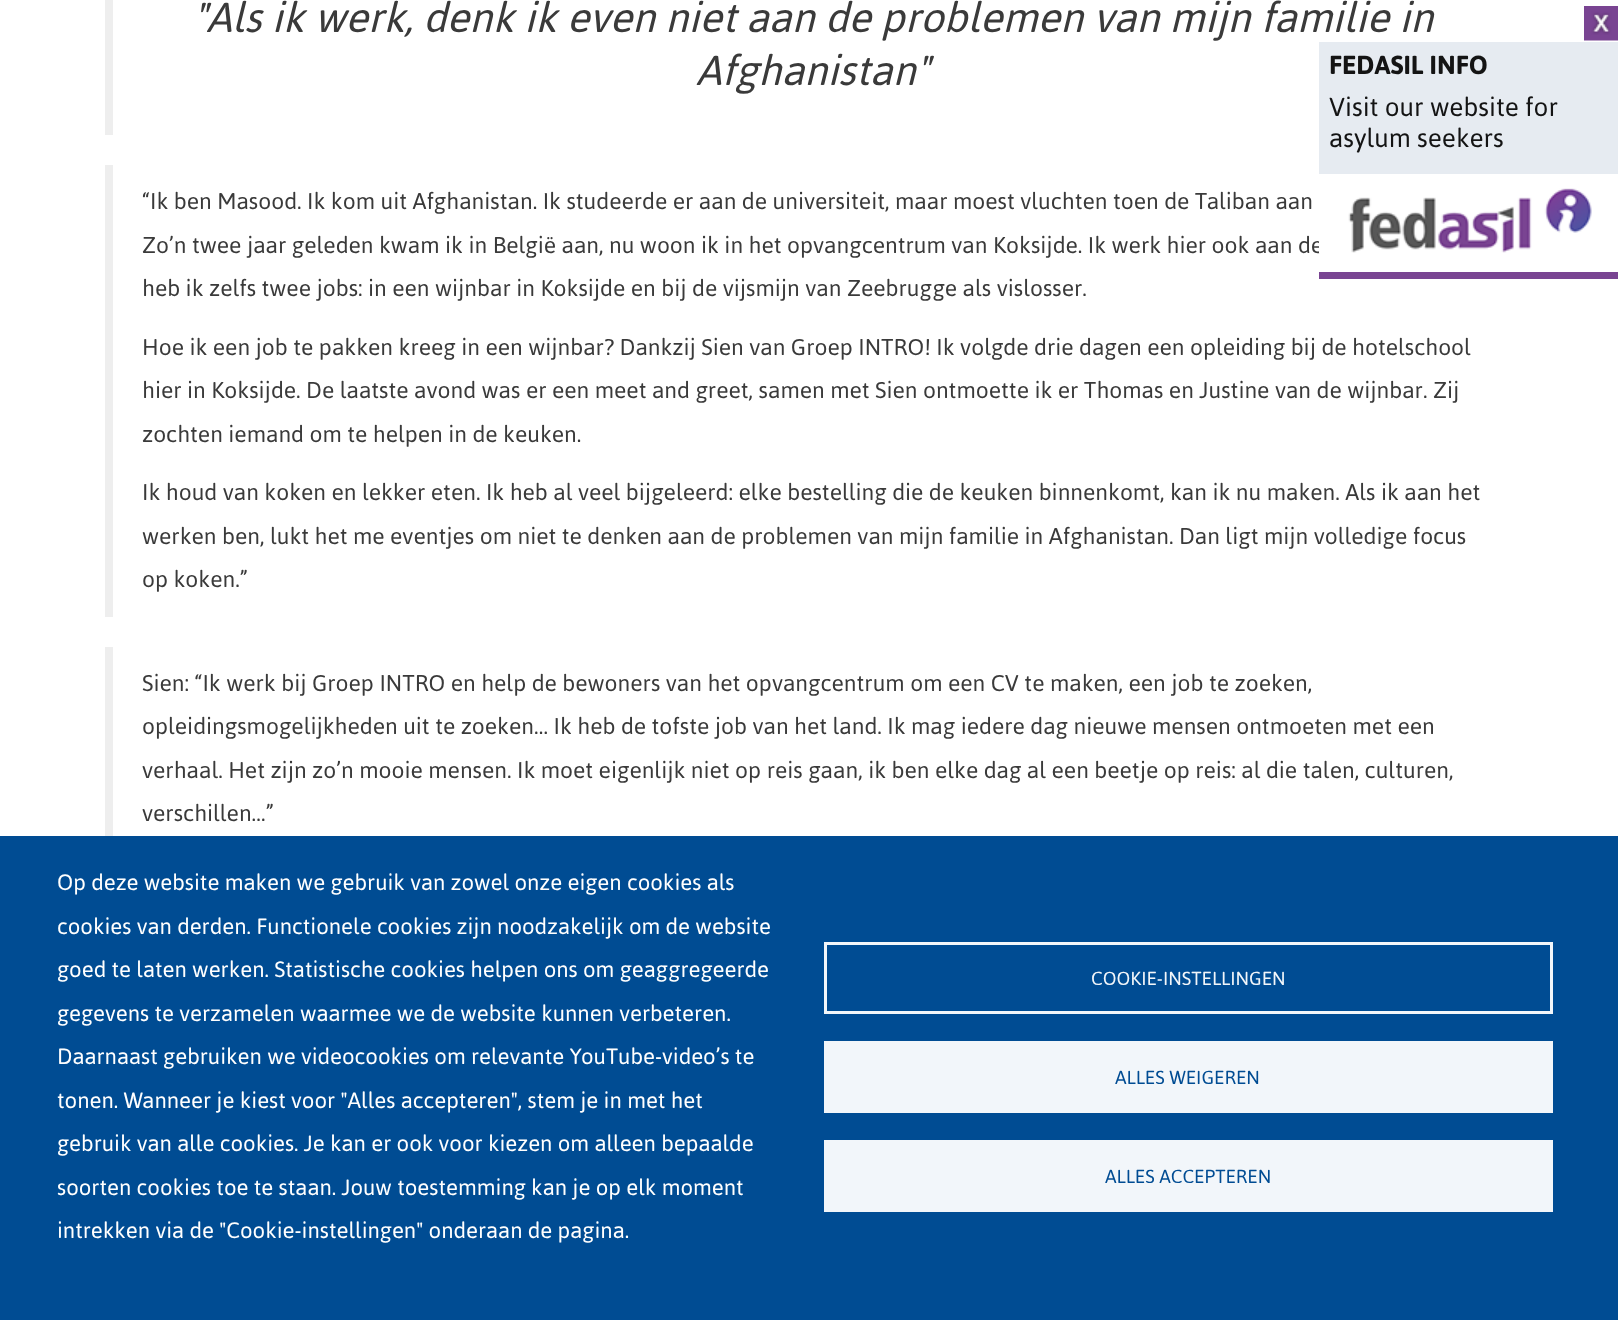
<svg xmlns="http://www.w3.org/2000/svg" width="1618" height="1320">
	<rect width="100%" height="100%" fill="#FFFFFF" />
	<rect x="105" y="0" width="8" height="135" fill="#EEEEEE" />
	<g font-family="Jaldi" font-size="48" font-style="italic" fill="#3A3A3A">
		<text x="193" y="32">"Als ik werk, denk ik even niet aan de problemen van mijn familie in</text>
		<text x="696" y="85">Afghanistan"</text>
	</g>
	<rect x="105" y="165" width="8" height="452" fill="#EEEEEE" />
	<g font-family="Jaldi" font-size="26.25" fill="#3A3A3A">
		<text x="142" y="209">“Ik ben Masood. Ik kom uit Afghanistan. Ik studeerde er aan de universiteit, maar moest vluchten toen de Taliban aan</text>
		<text x="142" y="253">Zo’n twee jaar geleden kwam ik in België aan, nu woon ik in het opvangcentrum van Koksijde. Ik werk hier ook aan de</text>
		<text x="142" y="296">heb ik zelfs twee jobs: in een wijnbar in Koksijde en bij de vijsmijn van Zeebrugge als vislosser.</text>
		<text x="142" y="355">Hoe ik een job te pakken kreeg in een wijnbar? Dankzij Sien van Groep INTRO! Ik volgde drie dagen een opleiding bij de hotelschool</text>
		<text x="142" y="398">hier in Koksijde. De laatste avond was er een meet and greet, samen met Sien ontmoette ik er Thomas en Justine van de wijnbar. Zij</text>
		<text x="142" y="442">zochten iemand om te helpen in de keuken.</text>
		<text x="142" y="500">Ik houd van koken en lekker eten. Ik heb al veel bijgeleerd: elke bestelling die de keuken binnenkomt, kan ik nu maken. Als ik aan het</text>
		<text x="142" y="544">werken ben, lukt het me eventjes om niet te denken aan de problemen van mijn familie in Afghanistan. Dan ligt mijn volledige focus</text>
		<text x="142" y="587">op koken.”</text>
	</g>
	<rect x="105" y="647" width="8" height="189" fill="#EEEEEE" />
	<g font-family="Jaldi" font-size="26.25" fill="#3A3A3A">
		<text x="142" y="691">Sien: “Ik werk bij Groep INTRO en help de bewoners van het opvangcentrum om een CV te maken, een job te zoeken,</text>
		<text x="142" y="734">opleidingsmogelijkheden uit te zoeken… Ik heb de tofste job van het land. Ik mag iedere dag nieuwe mensen ontmoeten met een</text>
		<text x="142" y="778">verhaal. Het zijn zo’n mooie mensen. Ik moet eigenlijk niet op reis gaan, ik ben elke dag al een beetje op reis: al die talen, culturen,</text>
		<text x="142" y="821">verschillen…”</text>
	</g>
	<rect x="1319" y="42" width="299" height="132" fill="#E6EBF1" />
	<rect x="1319" y="272" width="299" height="7" fill="#794492" />
	<image x="1584" y="6" width="34" height="35" href="assets/img1.png" />
	<text x="1329" y="74" font-family="Jaldi" font-size="30" font-weight="700" fill="#141414">FEDASIL INFO</text>
	<g font-family="Jaldi" font-size="30" fill="#141414">
		<text x="1329" y="116">Visit our website for</text>
		<text x="1329" y="147">asylum seekers</text>
	</g>
	<rect x="1319" y="241" width="3" height="12" fill="#FFFFFF" />
	<image x="1348" y="188" width="244" height="65" href="assets/img2.png" />
	<rect x="0" y="836" width="1618" height="484" fill="#004C93" />
	<g font-family="Jaldi" font-size="25.5" fill="#FFFFFF">
		<text x="57" y="890">Op deze website maken we gebruik van zowel onze eigen cookies als</text>
		<text x="57" y="934">cookies van derden. Functionele cookies zijn noodzakelijk om de website</text>
		<text x="57" y="977">goed te laten werken. Statistische cookies helpen ons om geaggregeerde</text>
		<text x="57" y="1021">gegevens te verzamelen waarmee we de website kunnen verbeteren.</text>
		<text x="57" y="1064">Daarnaast gebruiken we videocookies om relevante YouTube-video’s te</text>
		<text x="57" y="1108">tonen. Wanneer je kiest voor "Alles accepteren", stem je in met het</text>
		<text x="57" y="1151">gebruik van alle cookies. Je kan er ook voor kiezen om alleen bepaalde</text>
		<text x="57" y="1195">soorten cookies toe te staan. Jouw toestemming kan je op elk moment</text>
		<text x="57" y="1238">intrekken via de "Cookie-instellingen" onderaan de pagina.</text>
	</g>
	<rect x="825.5" y="943.5" width="726" height="69" fill="none" stroke="#F2F6FA" stroke-width="3" />
	<text x="1091" y="985" font-family="Jaldi" font-size="21.75" fill="#F2F6FA">COOKIE-INSTELLINGEN</text>
	<rect x="824" y="1041" width="729" height="72" fill="#F2F6FA" />
	<text x="1115" y="1084" font-family="Jaldi" font-size="21.75" fill="#004C93">ALLES WEIGEREN</text>
	<rect x="824" y="1140" width="729" height="72" fill="#F2F6FA" />
	<text x="1105" y="1183" font-family="Jaldi" font-size="21.75" fill="#004C93">ALLES ACCEPTEREN</text>
</svg>
